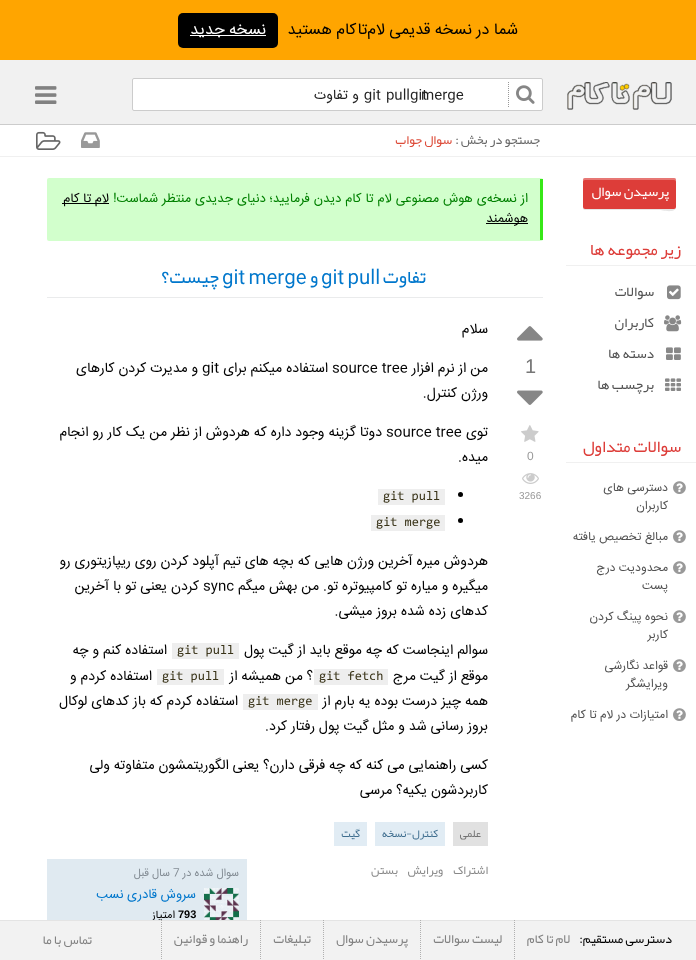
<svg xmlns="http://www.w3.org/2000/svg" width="696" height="960">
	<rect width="100%" height="100%" fill="#FFFFFF" />
	<rect x="0" y="0" width="696" height="60" fill="#FFA500" />
	<text x="518" y="34" font-family="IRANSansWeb" font-size="16" direction="rtl" fill="#000000">شما در نسخه قدیمی لام‌تا‌کام هستید</text>
	<rect x="178" y="13" width="100" height="35" rx="5" fill="#000000" />
	<rect x="190" y="35" width="76" height="1" fill="#FFFFFF" />
	<text x="266" y="34" font-family="IRANSansWeb" font-size="16" direction="rtl" fill="#FFFFFF">نسخه جدید</text>
	<rect x="0" y="60" width="696" height="64" fill="#F1F1F1" />
	<image x="567" y="82" width="105" height="28" href="assets/img1.png" />
	<rect x="0" y="124" width="696" height="1" fill="#CCCCCC" />
	<rect x="132.5" y="78.5" width="410" height="32" rx="1.5" fill="#FFFFFF" stroke="#CCCCCC" />
	<path d="M508.5 82V107" fill="none" stroke="#999999" stroke-dasharray="1 1" />
	<image x="516" y="85" width="19" height="19" href="assets/img2.png" />
	<g font-family="IRANSansWeb" font-size="14" fill="#222222">
		<text x="410" y="99">git</text>
		<text x="421" y="99">merge</text>
	</g>
	<g font-family="IRANSansWeb" font-size="14" direction="rtl" fill="#222222">
		<text x="410" y="99" word-spacing="1">git pull و</text>
		<text x="348" y="99">تفاوت</text>
	</g>
	<image x="35" y="86" width="22" height="18" href="assets/img3.png" />
	<rect x="0" y="156" width="696" height="1" fill="#F0F0F0" />
	<text x="540" y="144" font-family="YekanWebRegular" font-size="13" direction="rtl" fill="#666666">جستجو در بخش :</text>
	<text x="452" y="144" font-family="YekanWebRegular" font-size="13" direction="rtl" fill="#DD4B39">سوال جواب</text>
	<image x="36" y="131" width="25" height="19" href="assets/img4.png" />
	<image x="81" y="132" width="19" height="16" href="assets/img5.png" />
	<path d="M583 207C583 208 583 210 585 210H659C661 210 676 214 676 207C676 208 675 209 674 209H585C584 209 583 208 583 207Z" fill="#E6E6E6" />
	<rect x="583" y="178" width="93" height="31" rx="2" fill="#DD3D39" />
	<path d="M585 180H674C675 180 676 181 676 182V180C676 179 675 178 674 178H585C584 178 583 179 583 180V182C583 181 584 180 585 180Z" fill="#FFFFFF" fill-opacity="0.3" />
	<text x="669" y="196" font-family="YekanWebRegular" font-size="14" direction="rtl" fill="#FFFFFF">پرسیدن سوال</text>
	<rect x="566" y="265" width="130" height="1" fill="#F0F0F0" />
	<text x="681" y="255" font-family="YekanWebRegular" font-size="17" direction="rtl" fill="#DD3D39">زیر مجموعه ها</text>
	<image x="667" y="285" width="14" height="15" href="assets/img6.png" />
	<text x="654" y="296" font-family="YekanWebRegular" font-size="14" direction="rtl" fill="#525252">سوالات</text>
	<image x="664" y="315" width="18" height="17" href="assets/img7.png" />
	<text x="654" y="327" font-family="YekanWebRegular" font-size="14" direction="rtl" fill="#525252">کاربران</text>
	<image x="666" y="347" width="15" height="13" href="assets/img8.png" />
	<text x="654" y="358" font-family="YekanWebRegular" font-size="14" direction="rtl" fill="#525252">دسته ها</text>
	<image x="665" y="378" width="16" height="13" href="assets/img9.png" />
	<text x="654" y="389" font-family="YekanWebRegular" font-size="14" direction="rtl" fill="#525252">برچسب ها</text>
	<rect x="566" y="462" width="130" height="1" fill="#F0F0F0" />
	<text x="681" y="452" font-family="YekanWebRegular" font-size="17" direction="rtl" fill="#DD3D39">سوالات متداول</text>
	<image x="673" y="481" width="13" height="13" href="assets/img10.png" />
	<g font-family="IRANSansWeb" font-size="12" direction="rtl" fill="#525252">
		<text x="668" y="491">دسترسی های</text>
		<text x="668" y="509">کاربران</text>
	</g>
	<image x="673" y="530" width="13" height="13" href="assets/img10.png" />
	<text x="668" y="540" font-family="IRANSansWeb" font-size="12" direction="rtl" fill="#525252">مبالغ تخصیص یافته</text>
	<image x="673" y="561" width="13" height="13" href="assets/img10.png" />
	<g font-family="IRANSansWeb" font-size="12" direction="rtl" fill="#525252">
		<text x="668" y="571">محدودیت درج</text>
		<text x="668" y="589">پست</text>
	</g>
	<image x="673" y="610" width="13" height="13" href="assets/img10.png" />
	<g font-family="IRANSansWeb" font-size="12" direction="rtl" fill="#525252">
		<text x="668" y="620">نحوه پینگ کردن</text>
		<text x="668" y="638">کاربر</text>
	</g>
	<image x="673" y="659" width="13" height="13" href="assets/img10.png" />
	<g font-family="IRANSansWeb" font-size="12" direction="rtl" fill="#525252">
		<text x="668" y="669">قواعد نگارشی</text>
		<text x="668" y="687">ویرایشگر</text>
	</g>
	<image x="673" y="708" width="13" height="13" href="assets/img10.png" />
	<text x="668" y="718" font-family="IRANSansWeb" font-size="12" direction="rtl" fill="#525252">امتیازات در لام تا کام</text>
	<rect x="47" y="178" width="496" height="63" rx="2" fill="#D2FFCC" />
	<rect x="540" y="179" width="3" height="61" fill="#36E817" />
	<text x="528" y="202" word-spacing="0.25" font-family="IRANSansWeb" font-size="13" direction="rtl" fill="#008000">از نسخه‌ی هوش مصنوعی لام تا کام دیدن فرمایید؛ دنیای جدیدی منتظر شماست!</text>
	<rect x="62" y="203" width="47" height="1" fill="#000000" />
	<text x="109" y="202" font-family="IRANSansWeb" font-size="13" direction="rtl" fill="#000000">لام تا کام</text>
	<rect x="486" y="223" width="42" height="1" fill="#000000" />
	<text x="528" y="222" font-family="IRANSansWeb" font-size="13" direction="rtl" fill="#000000">هوشمند</text>
	<text x="426" y="283" font-family="YekanWebRegular" font-size="19" direction="rtl" fill="#0077CC">تفاوت</text>
	<text x="321" y="283" word-spacing="-2" font-family="IRANSansWeb" font-size="19" fill="#0077CC">git pull</text>
	<text x="318" y="283" font-family="YekanWebRegular" font-size="19" direction="rtl" fill="#0077CC">و</text>
	<text x="222" y="283" word-spacing="-2" font-family="IRANSansWeb" font-size="19" fill="#0077CC">git merge</text>
	<text x="219" y="283" font-family="YekanWebRegular" font-size="19" direction="rtl" fill="#0077CC">چیست؟</text>
	<rect x="47" y="297" width="496" height="1" fill="#EAEBEC" />
	<image x="517" y="326" width="26" height="15" href="assets/img11.png" />
	<text x="525" y="373" font-family="Liberation Sans" font-size="20" fill="#777777">1</text>
	<image x="517" y="390" width="26" height="15" href="assets/img12.png" />
	<image x="521" y="425" width="18" height="17" href="assets/img13.png" />
	<text x="527" y="460" font-family="Liberation Sans" font-size="12" fill="#999999">0</text>
	<image x="522" y="473" width="17" height="11" href="assets/img14.png" />
	<text x="519" y="499" font-family="Liberation Sans" font-size="10" fill="#999999">3266</text>
	<g font-family="IRANSansWeb" font-size="14" direction="rtl" fill="#000000">
		<text x="488" y="333">سلام</text>
		<text x="488" y="372">من از نرم افزار</text>
	</g>
	<text x="332" y="372" font-family="IRANSansWeb" font-size="14" fill="#000000">source tree</text>
	<text x="328" y="372" font-family="IRANSansWeb" font-size="14" direction="rtl" fill="#000000">استفاده میکنم برای</text>
	<text x="202" y="372" font-family="IRANSansWeb" font-size="14" fill="#000000">git</text>
	<g font-family="IRANSansWeb" font-size="14" direction="rtl" fill="#000000">
		<text x="198" y="372">و مدیرت کردن کارهای</text>
		<text x="488" y="397">ورژن کنترل.</text>
		<text x="488" y="436">توی</text>
	</g>
	<text x="386" y="436" font-family="IRANSansWeb" font-size="14" fill="#000000">source tree</text>
	<g font-family="IRANSansWeb" font-size="14" direction="rtl" fill="#000000">
		<text x="382" y="436">دوتا گزینه وجود داره که هردوش از نظر من یک کار رو انجام</text>
		<text x="488" y="461">میده.</text>
	</g>
	<circle cx="460.5" cy="494.5" r="2.5" fill="#000000" />
	<rect x="378" y="489" width="67" height="16" fill="#EEEEEE" />
	<text x="383" y="500" font-family="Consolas" font-size="13" fill="#393318">git pull</text>
	<circle cx="460.5" cy="520.5" r="2.5" fill="#000000" />
	<rect x="371" y="515" width="74" height="16" fill="#EEEEEE" />
	<text x="376" y="526" font-family="Consolas" font-size="13" fill="#393318">git merge</text>
	<g font-family="IRANSansWeb" font-size="14" direction="rtl" fill="#000000">
		<text x="488" y="565">هردوش میره آخرین ورژن هایی که بچه های تیم آپلود کردن روی ریپازیتوری رو</text>
		<text x="488" y="590">میگیره و میاره تو کامپیوتره تو. من بهش میگم</text>
	</g>
	<text x="203" y="590" font-family="IRANSansWeb" font-size="14" fill="#000000">sync</text>
	<g font-family="IRANSansWeb" font-size="14" direction="rtl" fill="#000000">
		<text x="199" y="590">کردن یعنی تو با آخرین</text>
		<text x="488" y="615">کدهای زده شده بروز میشی.</text>
		<text x="488" y="654">سوالم اینجاست که چه موقع باید از گیت پول</text>
	</g>
	<rect x="172" y="643" width="67" height="16" fill="#EEEEEE" />
	<text x="177" y="654" font-family="Consolas" font-size="13" fill="#393318">git pull</text>
	<g font-family="IRANSansWeb" font-size="14" direction="rtl" fill="#000000">
		<text x="167" y="654">استفاده کنم و چه</text>
		<text x="488" y="680">موقع از گیت مرج</text>
	</g>
	<rect x="314" y="669" width="74" height="16" fill="#EEEEEE" />
	<text x="319" y="680" font-family="Consolas" font-size="13" fill="#393318">git fetch</text>
	<text x="313" y="680" font-family="IRANSansWeb" font-size="14" direction="rtl" fill="#000000">؟ من همیشه از</text>
	<rect x="157" y="669" width="67" height="16" fill="#EEEEEE" />
	<text x="162" y="680" font-family="Consolas" font-size="13" fill="#393318">git pull</text>
	<g font-family="IRANSansWeb" font-size="14" direction="rtl" fill="#000000">
		<text x="152" y="680">استفاده کردم و</text>
		<text x="488" y="705">همه چیز درست بوده یه بارم از</text>
	</g>
	<rect x="243" y="694" width="75" height="16" fill="#EEEEEE" />
	<text x="248" y="705" font-family="Consolas" font-size="13" fill="#393318">git merge</text>
	<g font-family="IRANSansWeb" font-size="14" direction="rtl" fill="#000000">
		<text x="238" y="705">استفاده کردم که باز کدهای لوکال</text>
		<text x="488" y="730">بروز رسانی شد و مثل گیت پول رفتار کرد.</text>
		<text x="488" y="769">کسی راهنمایی می کنه که چه فرقی دارن؟ یعنی الگوریتمشون متفاوته ولی</text>
		<text x="488" y="794">کاربردشون یکیه؟ مرسی</text>
	</g>
	<rect x="453" y="822" width="35" height="24" fill="#E1E1E1" />
	<text x="481" y="837" font-family="YekanWebRegular" font-size="11" direction="rtl" fill="#717171">علمی</text>
	<rect x="375" y="822" width="70" height="24" fill="#E1ECF4" />
	<text x="438" y="837" font-family="YekanWebRegular" font-size="11" direction="rtl" fill="#3E6D8E">کنترل-نسخه</text>
	<rect x="334" y="822" width="33" height="24" fill="#E1ECF4" />
	<text x="360" y="837" font-family="YekanWebRegular" font-size="11" direction="rtl" fill="#3E6D8E">گیت</text>
	<g font-family="YekanWebRegular" font-size="12" direction="rtl" fill="#888888">
		<text x="488" y="874">اشتراک</text>
		<text x="443" y="874">ویرایش</text>
		<text x="398" y="874">بستن</text>
	</g>
	<rect x="47" y="859" width="200" height="61" fill="#E0EAF1" />
	<text x="239" y="876" font-family="IRANSansWeb" font-size="11" direction="rtl" fill="#848D95">سوال شده در</text>
	<text x="173" y="876" font-family="IRANSansWeb" font-size="11" fill="#848D95">7</text>
	<text x="170" y="876" font-family="IRANSansWeb" font-size="11" direction="rtl" fill="#848D95">سال قبل</text>
	<image x="204" y="888" width="35" height="32" href="assets/img15.png" />
	<text x="196" y="898" font-family="IRANSansWeb" font-size="13" direction="rtl" fill="#0077CC">سروش قادری نسب</text>
	<text x="178" y="918" font-family="Liberation Sans" font-size="11" font-weight="700" fill="#000000">793</text>
	<text x="175" y="918" font-family="IRANSansWeb" font-size="11" direction="rtl" fill="#000000">امتیاز</text>
	<rect x="0" y="921" width="696" height="39" fill="#F2F2F2" />
	<rect x="0" y="920" width="696" height="1" fill="#E4E4E4" />
	<text x="672" y="943" font-family="YekanWebRegular" font-size="13" direction="rtl" fill="#000000">دسترسی مستقیم:</text>
	<path d="M514.5 920V959" fill="none" stroke="#B0B0B0" stroke-dasharray="1 1" />
	<text x="570" y="943" font-family="YekanWebRegular" font-size="13" direction="rtl" fill="#818181">لام تا کام</text>
	<path d="M420.5 920V959" fill="none" stroke="#B0B0B0" stroke-dasharray="1 1" />
	<text x="502" y="943" font-family="YekanWebRegular" font-size="13" direction="rtl" fill="#818181">لیست سوالات</text>
	<path d="M323.5 920V959" fill="none" stroke="#B0B0B0" stroke-dasharray="1 1" />
	<text x="408" y="943" font-family="YekanWebRegular" font-size="13" direction="rtl" fill="#818181">پرسیدن سوال</text>
	<path d="M260.5 920V959" fill="none" stroke="#B0B0B0" stroke-dasharray="1 1" />
	<text x="311" y="943" font-family="YekanWebRegular" font-size="13" direction="rtl" fill="#818181">تبلیغات</text>
	<path d="M161.5 920V959" fill="none" stroke="#B0B0B0" stroke-dasharray="1 1" />
	<g font-family="YekanWebRegular" font-size="13" direction="rtl" fill="#818181">
		<text x="248" y="943">راهنما و قوانین</text>
		<text x="92" y="944">تماس با ما</text>
	</g>
</svg>
